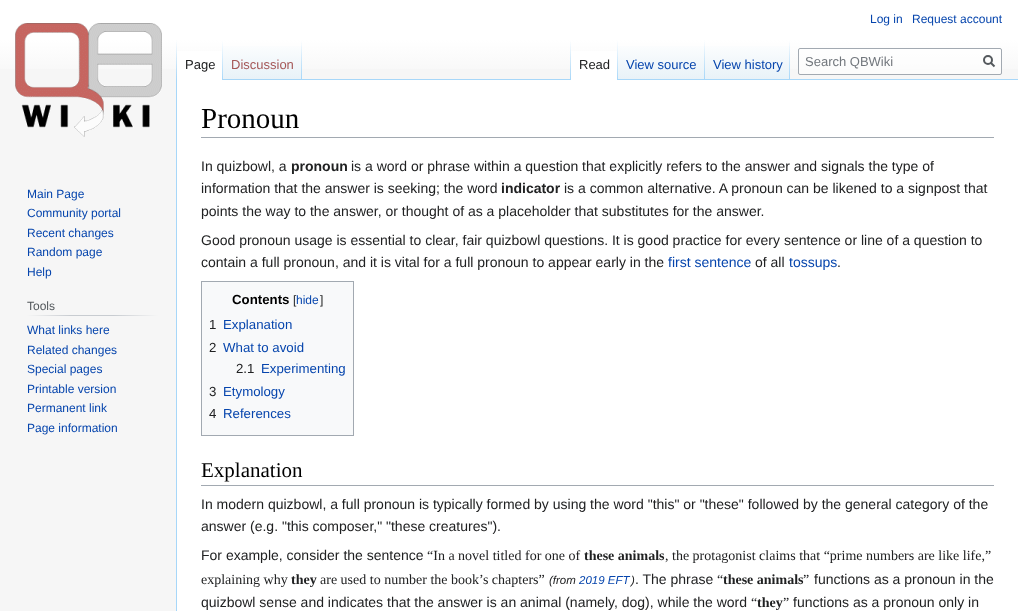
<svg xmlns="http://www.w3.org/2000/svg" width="1018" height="611">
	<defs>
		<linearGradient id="g1" gradientUnits="userSpaceOnUse" x1="509" y1="0" x2="509" y2="80"><stop offset="0.5" stop-color="#FFFFFF" /><stop offset="1" stop-color="#F6F6F6" /></linearGradient>
		<linearGradient id="g2" gradientUnits="userSpaceOnUse" x1="177" y1="40" x2="177" y2="80"><stop offset="0" stop-color="#A7D7F9" stop-opacity="0" /><stop offset="1" stop-color="#A7D7F9" /></linearGradient>
		<linearGradient id="g3" gradientUnits="userSpaceOnUse" x1="223" y1="40" x2="223" y2="80"><stop offset="0" stop-color="#FFFFFF" /><stop offset="1" stop-color="#A7D7F9" /></linearGradient>
		<linearGradient id="g4" gradientUnits="userSpaceOnUse" x1="263" y1="80" x2="263" y2="40"><stop offset="0" stop-color="#77C1F6" /><stop offset="0.03" stop-color="#E8F2F8" /><stop offset="1" stop-color="#FFFFFF" /></linearGradient>
		<linearGradient id="g5" gradientUnits="userSpaceOnUse" x1="302" y1="40" x2="302" y2="80"><stop offset="0" stop-color="#A7D7F9" stop-opacity="0" /><stop offset="1" stop-color="#A7D7F9" /></linearGradient>
		<linearGradient id="g6" gradientUnits="userSpaceOnUse" x1="571" y1="40" x2="571" y2="80"><stop offset="0" stop-color="#A7D7F9" stop-opacity="0" /><stop offset="1" stop-color="#A7D7F9" /></linearGradient>
		<linearGradient id="g7" gradientUnits="userSpaceOnUse" x1="618" y1="40" x2="618" y2="80"><stop offset="0" stop-color="#FFFFFF" /><stop offset="1" stop-color="#A7D7F9" /></linearGradient>
		<linearGradient id="g8" gradientUnits="userSpaceOnUse" x1="662" y1="80" x2="662" y2="40"><stop offset="0" stop-color="#77C1F6" /><stop offset="0.03" stop-color="#E8F2F8" /><stop offset="1" stop-color="#FFFFFF" /></linearGradient>
		<linearGradient id="g9" gradientUnits="userSpaceOnUse" x1="705" y1="40" x2="705" y2="80"><stop offset="0" stop-color="#A7D7F9" stop-opacity="0" /><stop offset="1" stop-color="#A7D7F9" /></linearGradient>
		<linearGradient id="g10" gradientUnits="userSpaceOnUse" x1="748" y1="80" x2="748" y2="40"><stop offset="0" stop-color="#77C1F6" /><stop offset="0.03" stop-color="#E8F2F8" /><stop offset="1" stop-color="#FFFFFF" /></linearGradient>
		<linearGradient id="g11" gradientUnits="userSpaceOnUse" x1="790" y1="40" x2="790" y2="80"><stop offset="0" stop-color="#A7D7F9" stop-opacity="0" /><stop offset="1" stop-color="#A7D7F9" /></linearGradient>
		<linearGradient id="g12" gradientUnits="userSpaceOnUse" x1="27" y1="316" x2="158" y2="316"><stop offset="0" stop-color="#F6F6F6" /><stop offset="0.33" stop-color="#C8CCD1" /><stop offset="0.66" stop-color="#C8CCD1" /><stop offset="1" stop-color="#F6F6F6" /></linearGradient>
	</defs>
	<rect width="100%" height="100%" fill="#F6F6F6" />
	<rect x="0" y="0" width="1018" height="69" fill="url(#g1)" />
	<g font-family="Liberation Sans" font-size="12" fill="#0645AD">
		<text x="870" y="23">Log in</text>
		<text x="912" y="23">Request account</text>
	</g>
	<rect x="176" y="79" width="1" height="532" fill="#A7D7F9" />
	<rect x="176" y="40" width="1" height="40" fill="url(#g2)" />
	<rect x="177" y="51" width="45" height="29" fill="#FFFFFF" />
	<rect x="222" y="40" width="1" height="40" fill="url(#g3)" />
	<text x="185" y="69" font-family="Liberation Sans" font-size="13" fill="#202122">Page</text>
	<rect x="223" y="46" width="79" height="34" fill="url(#g4)" />
	<rect x="301" y="40" width="1" height="40" fill="url(#g5)" />
	<text x="231" y="69" font-family="Liberation Sans" font-size="13" fill="#A55858">Discussion</text>
	<rect x="302" y="79" width="716" height="1" fill="#A7D7F9" />
	<rect x="570" y="40" width="1" height="40" fill="url(#g6)" />
	<rect x="571" y="51" width="46" height="29" fill="#FFFFFF" />
	<rect x="617" y="40" width="1" height="40" fill="url(#g7)" />
	<text x="579" y="69" font-family="Liberation Sans" font-size="13" fill="#202122">Read</text>
	<rect x="618" y="46" width="87" height="33" fill="url(#g8)" />
	<rect x="704" y="40" width="1" height="40" fill="url(#g9)" />
	<text x="626" y="69" font-family="Liberation Sans" font-size="13" fill="#0645AD">View source</text>
	<rect x="705" y="46" width="85" height="33" fill="url(#g10)" />
	<rect x="789" y="40" width="1" height="40" fill="url(#g11)" />
	<text x="713" y="69" font-family="Liberation Sans" font-size="13" fill="#0645AD">View history</text>
	<rect x="798.5" y="48.5" width="203" height="26" rx="1.5" fill="#FFFFFF" fill-opacity="0.5" stroke="#A2A9B1" />
	<text x="805" y="66" font-family="Liberation Sans" font-size="13" fill="#72777D">Search QBWiki</text>
	<path d="M994.5 66.5L990.5 62.5" fill="none" stroke="#54595D" stroke-width="2" />
	<circle cx="988" cy="60" r="4" fill="none" stroke="#54595D" stroke-width="2" />
	<image x="15" y="23" width="147" height="114" href="assets/img1.png" />
	<g font-family="Liberation Sans" font-size="12" fill="#0645AD">
		<text x="27" y="198">Main Page</text>
		<text x="27" y="217">Community portal</text>
		<text x="27" y="237">Recent changes</text>
		<text x="27" y="256">Random page</text>
		<text x="27" y="276">Help</text>
	</g>
	<rect x="27" y="315" width="131" height="1" fill="url(#g12)" />
	<text x="27" y="310" font-family="Liberation Sans" font-size="12" fill="#54595D">Tools</text>
	<g font-family="Liberation Sans" font-size="12" fill="#0645AD">
		<text x="27" y="334">What links here</text>
		<text x="27" y="354">Related changes</text>
		<text x="27" y="373">Special pages</text>
		<text x="27" y="393">Printable version</text>
		<text x="27" y="412">Permanent link</text>
		<text x="27" y="432">Page information</text>
	</g>
	<rect x="177" y="80" width="841" height="531" fill="#FFFFFF" />
	<rect x="201" y="137" width="793" height="1" fill="#A2A9B1" />
	<text x="201" y="128" font-family="Liberation Serif" font-size="29" fill="#000000">Pronoun</text>
	<text x="201" y="171" font-family="Liberation Sans" font-size="14" fill="#202122">In quizbowl, a</text>
	<text x="291" y="171" font-family="Liberation Sans" font-size="14" font-weight="700" fill="#202122">pronoun</text>
	<g font-family="Liberation Sans" font-size="14" fill="#202122">
		<text x="351" y="171">is a word or phrase within a question that explicitly refers to the answer and signals the type of</text>
		<text x="201" y="193">information that the answer is seeking; the word</text>
	</g>
	<text x="501" y="193" font-family="Liberation Sans" font-size="14" font-weight="700" fill="#202122">indicator</text>
	<g font-family="Liberation Sans" font-size="14" fill="#202122">
		<text x="564" y="193">is a common alternative. A pronoun can be likened to a signpost that</text>
		<text x="201" y="216">points the way to the answer, or thought of as a placeholder that substitutes for the answer.</text>
		<text x="201" y="245">Good pronoun usage is essential to clear, fair quizbowl questions. It is good practice for every sentence or line of a question to</text>
		<text x="201" y="267">contain a full pronoun, and it is vital for a full pronoun to appear early in the</text>
	</g>
	<text x="668" y="267" font-family="Liberation Sans" font-size="14" fill="#0645AD">first sentence</text>
	<text x="755" y="267" font-family="Liberation Sans" font-size="14" fill="#202122">of all</text>
	<text x="789" y="267" font-family="Liberation Sans" font-size="14" fill="#0645AD">tossups</text>
	<text x="837" y="267" font-family="Liberation Sans" font-size="14" fill="#202122">.</text>
	<rect x="201.5" y="281.5" width="152" height="154" fill="#F8F9FA" stroke="#A2A9B1" />
	<text x="232" y="304" font-family="Liberation Sans" font-size="13.25" font-weight="700" fill="#000000">Contents</text>
	<text x="293" y="304" font-family="Liberation Sans" font-size="12" fill="#202122">[</text>
	<text x="296" y="304" font-family="Liberation Sans" font-size="12" fill="#0645AD">hide</text>
	<text x="320" y="304" font-family="Liberation Sans" font-size="12" fill="#202122">]</text>
	<text x="209" y="329" font-family="Liberation Sans" font-size="13.25" fill="#202122">1</text>
	<text x="223" y="329" font-family="Liberation Sans" font-size="13.25" fill="#0645AD">Explanation</text>
	<text x="209" y="352" font-family="Liberation Sans" font-size="13.25" fill="#202122">2</text>
	<text x="223" y="352" font-family="Liberation Sans" font-size="13.25" fill="#0645AD">What to avoid</text>
	<text x="236" y="373" font-family="Liberation Sans" font-size="13.25" fill="#202122">2.1</text>
	<text x="261" y="373" font-family="Liberation Sans" font-size="13.25" fill="#0645AD">Experimenting</text>
	<text x="209" y="396" font-family="Liberation Sans" font-size="13.25" fill="#202122">3</text>
	<text x="223" y="396" font-family="Liberation Sans" font-size="13.25" fill="#0645AD">Etymology</text>
	<text x="209" y="418" font-family="Liberation Sans" font-size="13.25" fill="#202122">4</text>
	<text x="223" y="418" font-family="Liberation Sans" font-size="13.25" fill="#0645AD">References</text>
	<rect x="201" y="485" width="793" height="1" fill="#A2A9B1" />
	<text x="201" y="477" font-family="Liberation Serif" font-size="21" fill="#000000">Explanation</text>
	<g font-family="Liberation Sans" font-size="14" fill="#202122">
		<text x="201" y="509">In modern quizbowl, a full pronoun is typically formed by using the word "this" or "these" followed by the general category of the</text>
		<text x="201" y="531">answer (e.g. "this composer," "these creatures").</text>
		<text x="201" y="560">For example, consider the sentence</text>
	</g>
	<text x="427" y="560" font-family="Liberation Serif" font-size="14" fill="#202122">“In a novel titled for one of</text>
	<text x="584" y="560" font-family="Liberation Serif" font-size="14" font-weight="700" fill="#202122">these animals</text>
	<g font-family="Liberation Serif" font-size="14" fill="#202122">
		<text x="665" y="560">, the protagonist claims that “prime numbers are like life,”</text>
		<text x="201" y="584">explaining why</text>
	</g>
	<text x="291" y="584" font-family="Liberation Serif" font-size="14" font-weight="700" fill="#202122">they</text>
	<text x="320" y="584" font-family="Liberation Serif" font-size="14" fill="#202122">are used to number the book’s chapters”</text>
	<text x="549" y="584" font-family="Liberation Sans" font-size="11.5" font-style="italic" fill="#202122">(from</text>
	<text x="579" y="584" font-family="Liberation Sans" font-size="11.5" font-style="italic" fill="#0645AD">2019 EFT</text>
	<text x="635" y="584" font-family="Liberation Sans" font-size="14" fill="#202122">. The phrase</text>
	<text x="717" y="584" font-family="Liberation Serif" font-size="14" fill="#202122">“</text>
	<text x="723" y="584" font-family="Liberation Serif" font-size="14" font-weight="700" fill="#202122">these animals</text>
	<text x="803" y="584" font-family="Liberation Serif" font-size="14" fill="#202122">”</text>
	<text x="814" y="584" font-family="Liberation Sans" font-size="14" fill="#202122">functions as a pronoun in the</text>
	<text x="631" y="584" font-family="Liberation Sans" font-size="11.5" font-style="italic" fill="#202122">)</text>
	<text x="201" y="607" font-family="Liberation Sans" font-size="14" fill="#202122">quizbowl sense and indicates that the answer is an animal (namely, dog), while the word</text>
	<text x="751" y="607" font-family="Liberation Serif" font-size="14" fill="#202122">“</text>
	<text x="757" y="607" font-family="Liberation Serif" font-size="14" font-weight="700" fill="#202122">they</text>
	<text x="783" y="607" font-family="Liberation Serif" font-size="14" fill="#202122">”</text>
	<text x="793" y="607" font-family="Liberation Sans" font-size="14" fill="#202122">functions as a pronoun only in</text>
</svg>
